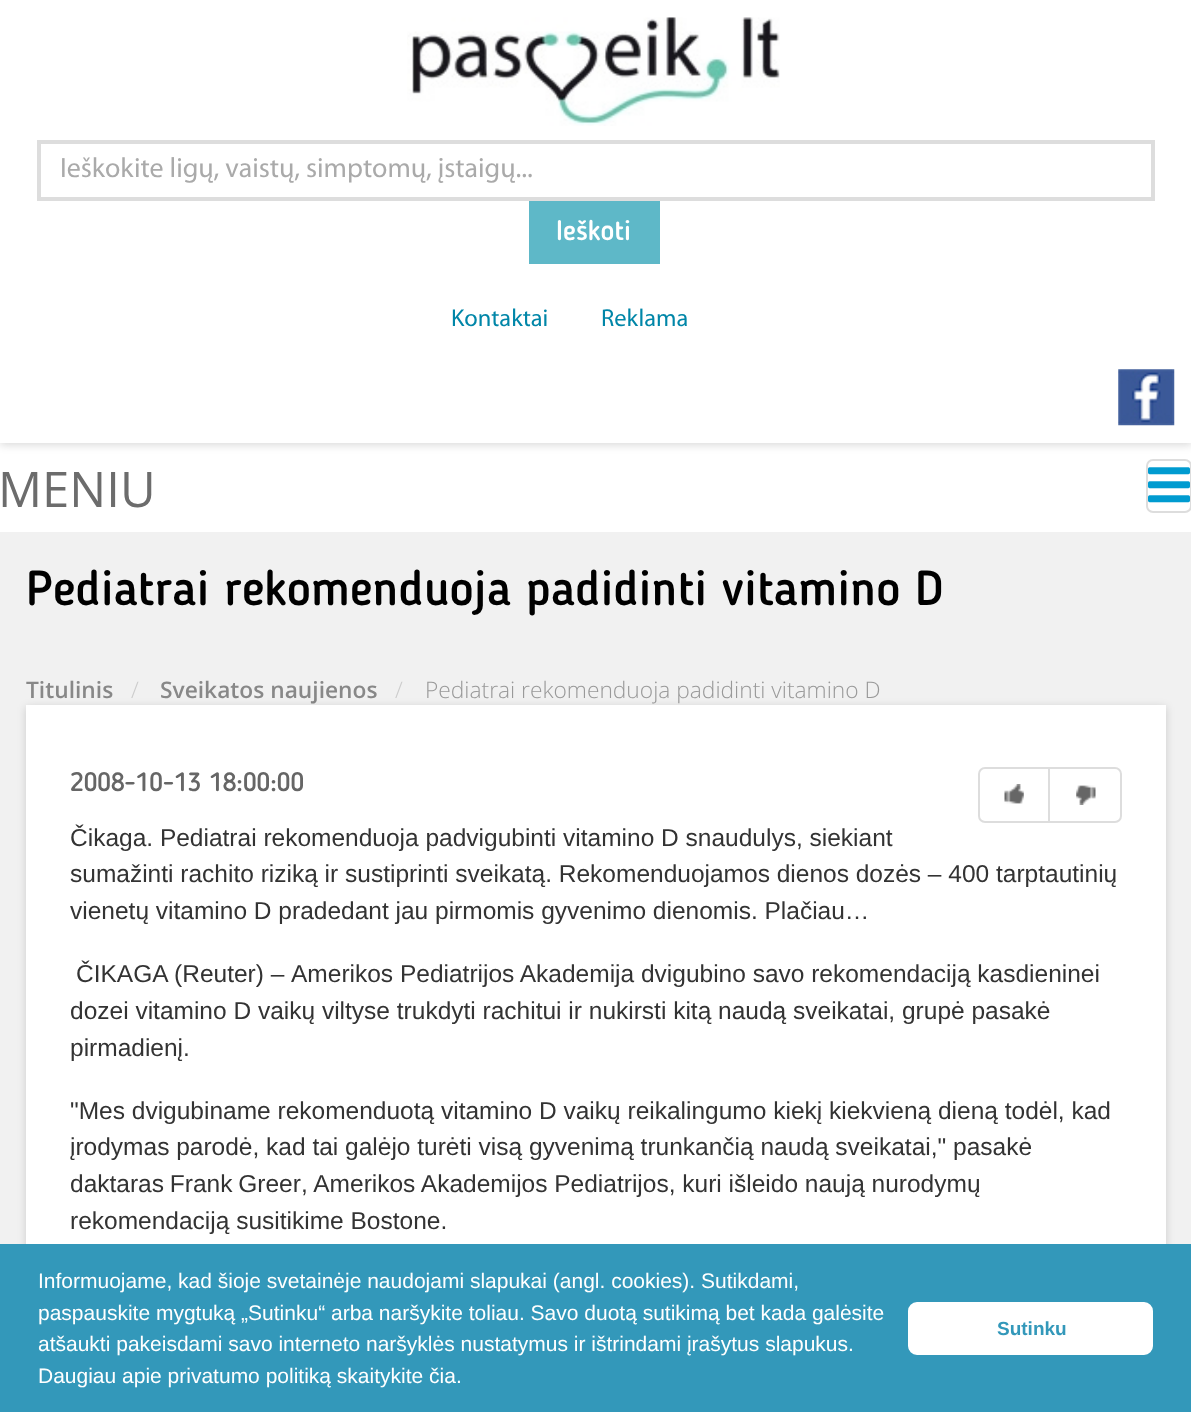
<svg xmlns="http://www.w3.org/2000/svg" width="1191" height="1412">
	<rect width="100%" height="100%" fill="#FFFFFF" />
	<rect x="0" y="2" width="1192" height="443" fill="#000000" fill-opacity="0.15" filter="blur(4.5px)" />
	<rect x="0" y="0" width="1191" height="443" fill="#FFFFFF" />
	<image x="407" y="17" width="373" height="109" href="assets/img1.png" />
	<rect x="39" y="142" width="1114" height="57" fill="none" stroke="#DDDDDD" stroke-width="4" />
	<text x="60" y="177" font-family="Myriad" font-size="28" fill="#AAAAAA">Ieškokite ligų, vaistų, simptomų, įstaigų...</text>
	<rect x="529" y="201" width="131" height="63" fill="#5EB8C8" />
	<text x="556" y="240" font-family="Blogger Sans" font-size="28" font-weight="500" fill="#FFFFFF">Ieškoti</text>
	<g font-family="Myriad" font-size="24.5" fill="#0086A8">
		<text x="451" y="326">Kontaktai</text>
		<text x="601" y="326">Reklama</text>
	</g>
	<image x="1118" y="369" width="57" height="57" href="assets/img2.png" />
	<text x="-2" y="507" font-family="Open Sans" font-size="49" fill="#6C6C6C">MENIU</text>
	<rect x="1147" y="460" width="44" height="52" rx="6" fill="none" stroke="#DDDDDD" stroke-width="2" />
	<image x="1148" y="467" width="42" height="36" href="assets/img3.png" />
	<rect x="0" y="532" width="1191" height="712" fill="#F1F1F1" />
	<text x="26" y="605" font-family="Blogger Sans" font-size="49" font-weight="500" fill="#000000">Pediatrai rekomenduoja padidinti vitamino D</text>
	<text x="26" y="698" font-family="Open Sans" font-size="22.75" font-weight="600" fill="#888888">Titulinis</text>
	<text x="131" y="698" font-family="Open Sans" font-size="22.75" font-weight="300" fill="#CCCCCC">/</text>
	<text x="160" y="698" font-family="Open Sans" font-size="22.75" font-weight="600" fill="#888888">Sveikatos naujienos</text>
	<text x="395" y="698" font-family="Open Sans" font-size="22.75" font-weight="300" fill="#CCCCCC">/</text>
	<text x="425" y="698" font-family="Open Sans" font-size="22.75" font-weight="300" fill="#999999">Pediatrai rekomenduoja padidinti vitamino D</text>
	<rect x="26" y="707" width="1140" height="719" fill="#000000" fill-opacity="0.15" filter="blur(4.5px)" />
	<rect x="26" y="705" width="1140" height="539" fill="#FFFFFF" />
	<text x="70" y="791" font-family="Blogger Sans" font-size="26.25" font-weight="500" fill="#666666">2008-10-13 18:00:00</text>
	<rect x="979" y="768" width="142" height="54" rx="6" fill="none" stroke="#DDDDDD" stroke-width="2" />
	<rect x="1048" y="768" width="2" height="53" fill="#DDDDDD" />
	<image x="1004" y="784" width="20" height="20" href="assets/img4.png" />
	<image x="1076" y="785" width="20" height="20" href="assets/img5.png" />
	<g font-family="Liberation Sans" font-size="24.5" fill="#333333">
		<text x="70" y="846">Čikaga. Pediatrai rekomenduoja padvigubinti vitamino D snaudulys, siekiant</text>
		<text x="70" y="882">sumažinti rachito riziką ir sustiprinti sveikatą. Rekomenduojamos dienos dozės – 400 tarptautinių</text>
		<text x="70" y="919">vienetų vitamino D pradedant jau pirmomis gyvenimo dienomis. Plačiau…</text>
		<text x="76" y="982">ČIKAGA (Reuter) –</text>
		<text x="291" y="982">Amerikos Pediatrijos Akademija dvigubino savo rekomendaciją kasdieninei</text>
		<text x="70" y="1019">dozei vitamino D vaikų viltyse trukdyti rachitui ir nukirsti kitą naudą sveikatai, grupė pasakė</text>
		<text x="70" y="1056">pirmadienį.</text>
		<text x="70" y="1119">"Mes dvigubiname rekomenduotą vitamino D vaikų reikalingumo kiekį kiekvieną dieną todėl, kad</text>
		<text x="70" y="1155">įrodymas parodė, kad tai galėjo turėti visą gyvenimą trunkančią naudą sveikatai," pasakė</text>
		<text x="70" y="1192" word-spacing="-1">daktaras Frank Greer</text>
		<text x="301" y="1192">, Amerikos Akademijos Pediatrijos, kuri išleido naują nurodymų</text>
		<text x="70" y="1229">rekomendaciją susitikime Bostone.</text>
	</g>
	<rect x="0" y="1244" width="1191" height="168" fill="#3398BA" />
	<g font-family="Liberation Sans" font-size="21" fill="#FFFFFF">
		<text x="38" y="1288">Informuojame, kad šioje svetainėje naudojami slapukai (angl. cookies). Sutikdami,</text>
		<text x="38" y="1320">paspauskite mygtuką „Sutinku“ arba naršykite toliau. Savo duotą sutikimą bet kada galėsite</text>
		<text x="38" y="1351">atšaukti pakeisdami savo interneto naršyklės nustatymus ir ištrindami įrašytus slapukus.</text>
		<text x="38" y="1383">Daugiau apie privatumo politiką skaitykite čia.</text>
	</g>
	<rect x="910" y="1304" width="241" height="49" rx="7" fill="#FFFFFF" stroke="#FFFFFF" stroke-width="4" />
	<text x="997" y="1335" font-family="Liberation Sans" font-size="19" font-weight="700" fill="#3398BA">Sutinku</text>
</svg>
